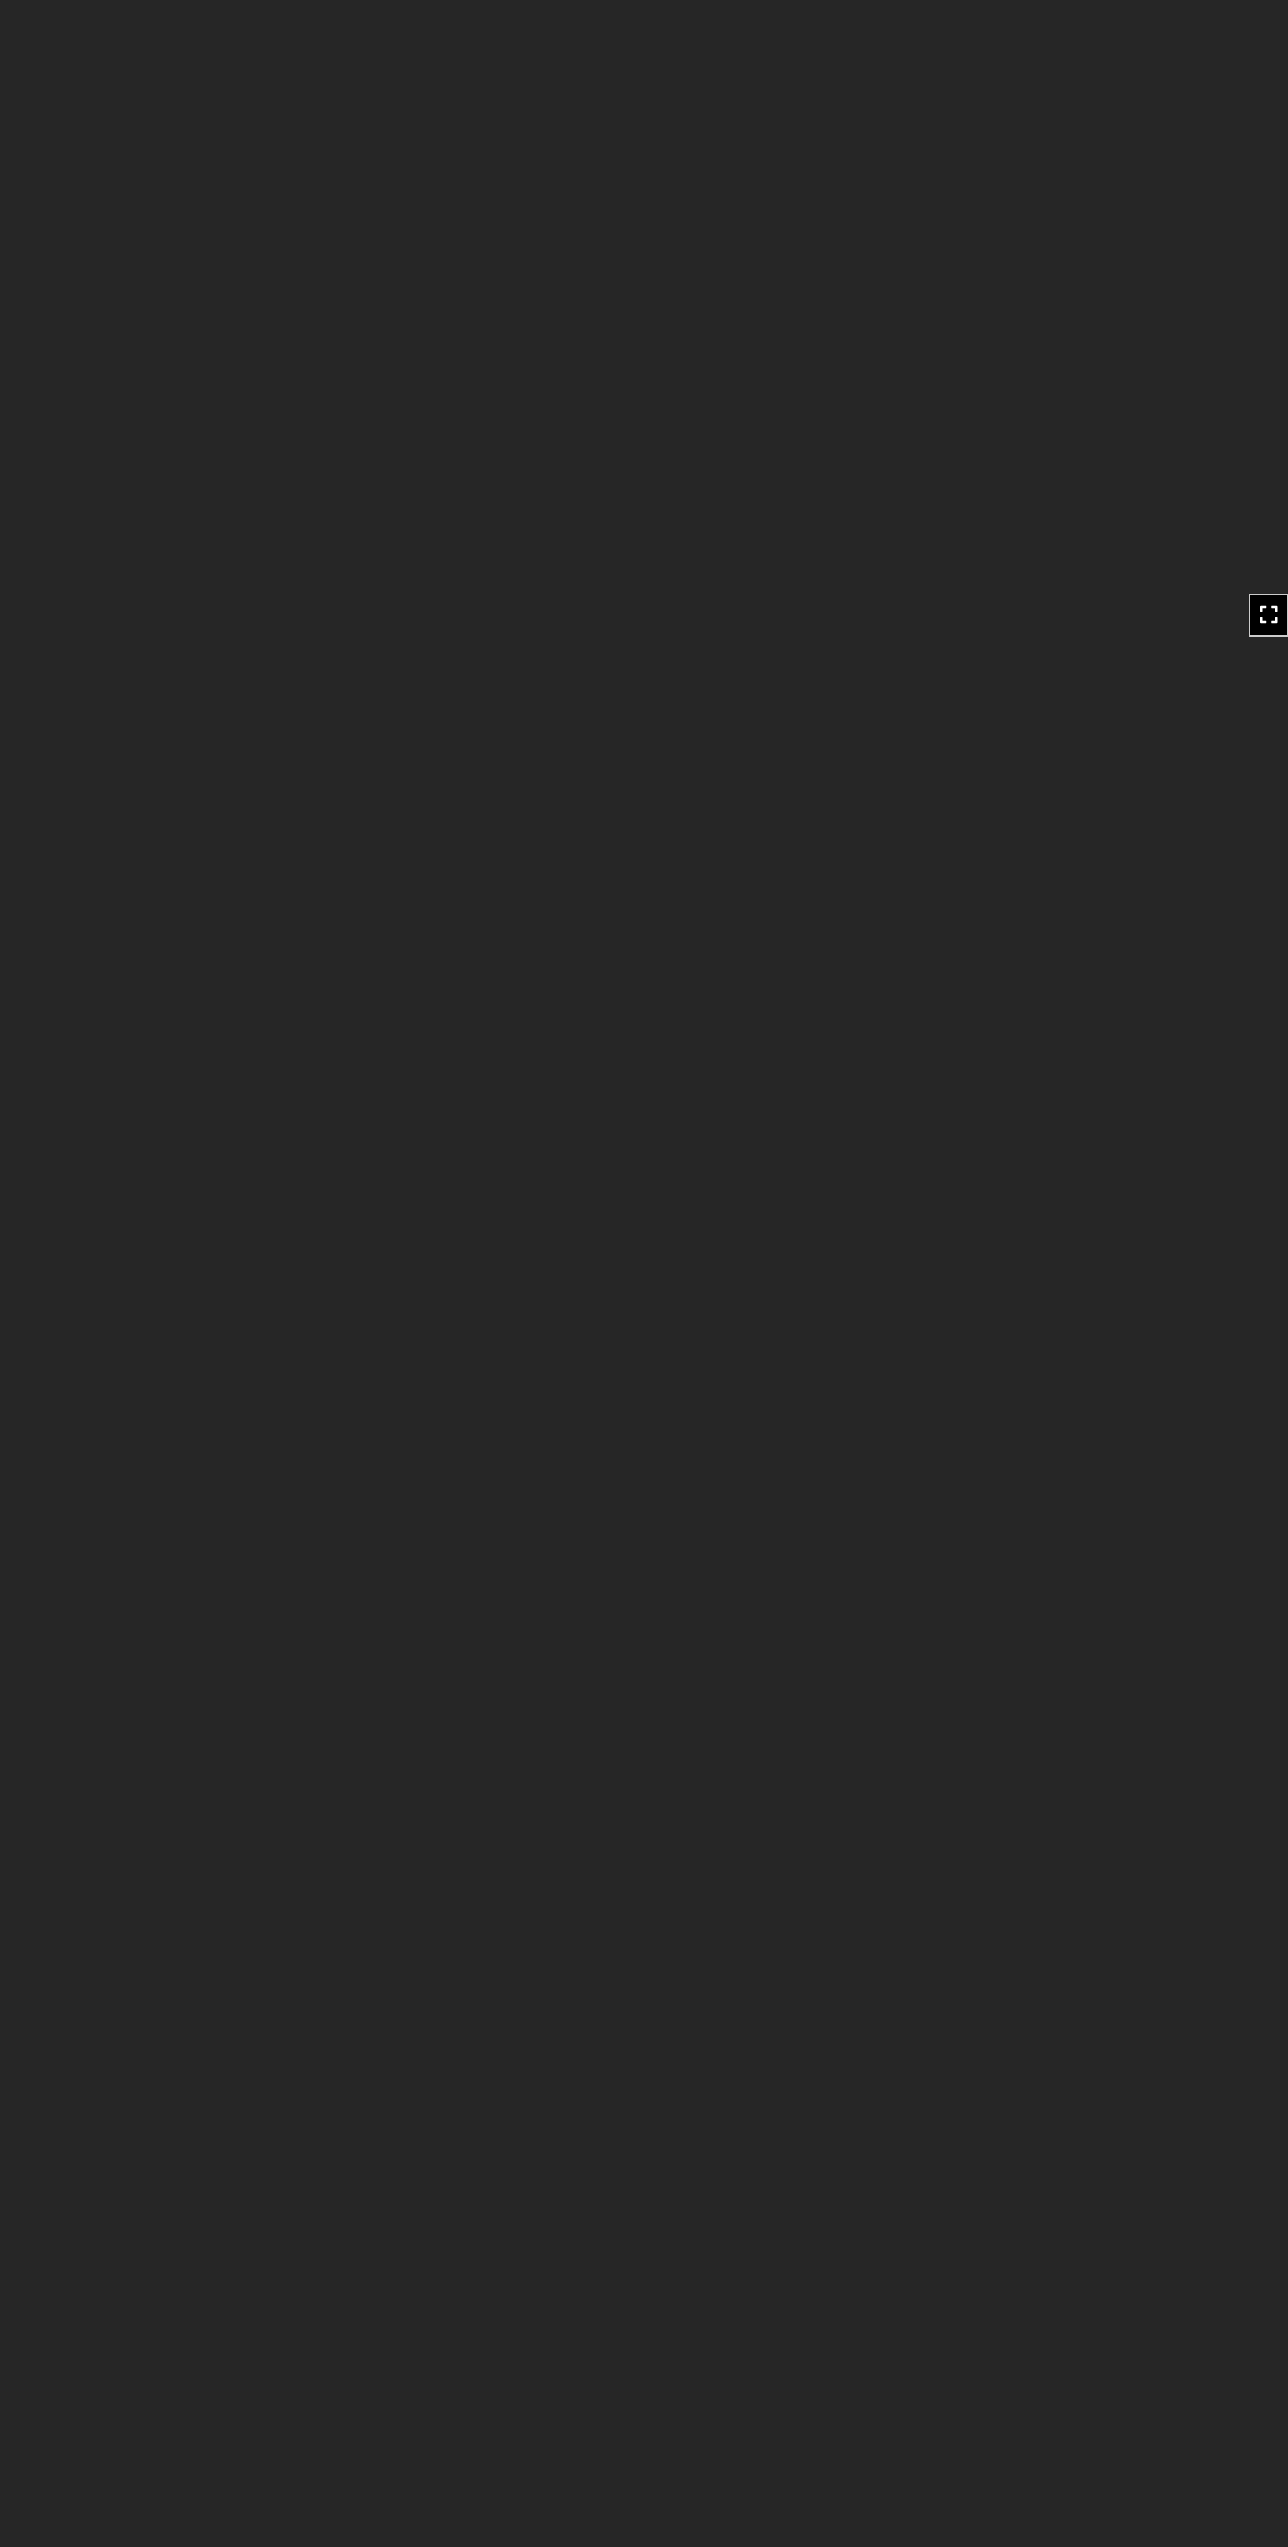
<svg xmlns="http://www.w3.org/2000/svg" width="1288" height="2547">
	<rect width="100%" height="100%" fill="#262626" />
	<rect x="1249" y="594" width="39" height="1" fill="#CCCCCC" />
	<rect x="1287" y="594" width="1" height="43" fill="#CCCCCC" />
	<rect x="1249" y="594" width="1" height="43" fill="#CCCCCC" />
	<rect x="1250" y="595" width="37" height="40" fill="#000000" />
	<rect x="1250" y="635" width="37" height="2" fill="#CCCCCC" />
	<image x="1260" y="605" width="18" height="19" href="assets/img1.png" />
</svg>
